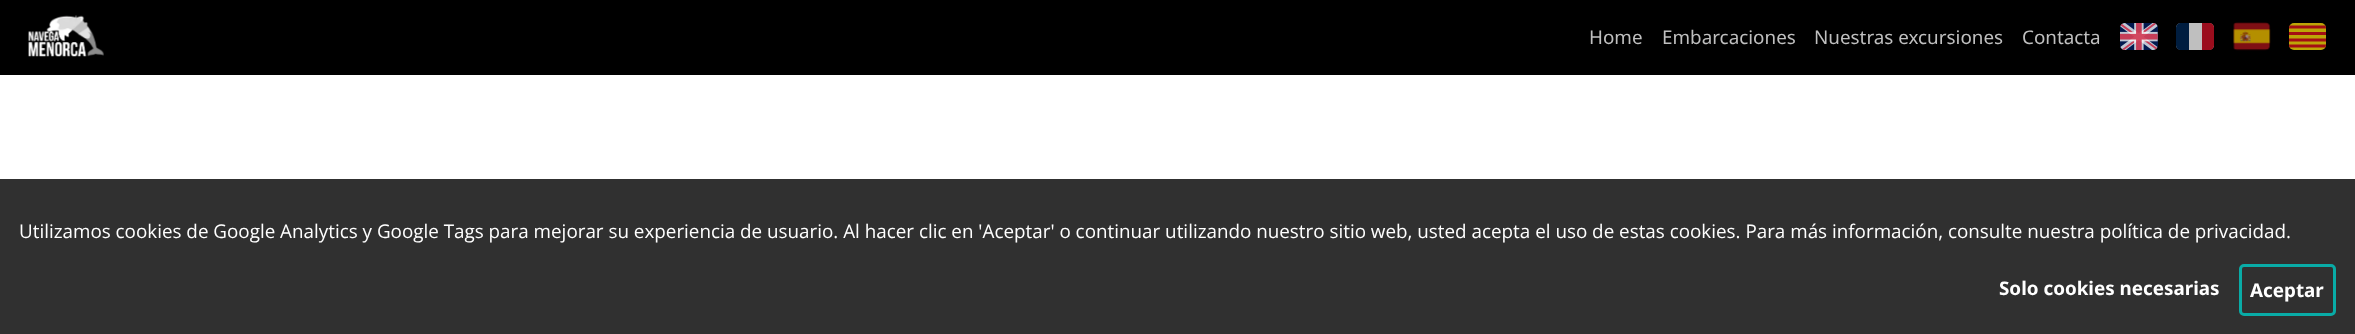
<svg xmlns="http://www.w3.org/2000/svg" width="2355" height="334">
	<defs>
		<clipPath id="clip1"><rect x="2289" y="23" width="37" height="27" rx="5" /></clipPath>
	</defs>
	<rect width="100%" height="100%" fill="#FFFFFF" />
	<rect x="0" y="0" width="2355" height="75" fill="#000000" />
	<image x="28" y="15" width="76" height="42" href="assets/img1.png" />
	<g font-family="Noto Sans" font-size="18.84" fill="#BFBFBF">
		<text x="1589" y="44">Home</text>
		<text x="1662" y="44">Embarcaciones</text>
		<text x="1814" y="44">Nuestras excursiones</text>
		<text x="2022" y="44">Contacta</text>
	</g>
	<image x="2120" y="23" width="38" height="27" href="assets/img2.png" />
	<rect x="2176" y="23" width="38" height="27" rx="5" fill="#BFBFBF" />
	<path d="M2181 23H2189V50H2181C2178 50 2176 48 2176 45V28C2176 25 2178 23 2181 23Z" fill="#001D3F" />
	<path d="M2202 23H2209C2212 23 2214 25 2214 28V45C2214 48 2212 50 2209 50H2202Z" fill="#9B0D1D" />
	<image x="2233" y="22" width="38" height="29" href="assets/img3.png" />
	<rect x="2289" y="23" width="37" height="27" rx="5" fill="#BDA607" />
	<g clip-path="url(#clip1)">
		<path d="M2289 27H2326.5M2326.5 33.5H2289M2289 40H2326.5M2326.5 46H2289" fill="none" stroke="#A40E14" stroke-width="3" />
	</g>
	<rect x="0" y="179" width="2355" height="155" fill="#303030" />
	<text x="19" y="238" font-family="Open Sans" font-size="18.84" fill="#FFFFFF">Utilizamos cookies de Google Analytics y Google Tags para mejorar su experiencia de usuario. Al hacer clic en 'Aceptar' o continuar utilizando nuestro sitio web, usted acepta el uso de estas cookies. Para más información, consulte nuestra política de privacidad.</text>
	<text x="1999" y="295" font-family="Noto Sans" font-size="18.84" font-weight="700" fill="#FFFFFF">Solo cookies necesarias</text>
	<rect x="2240.5" y="265.5" width="94" height="49" rx="3.5" fill="none" stroke="#09ABA6" stroke-width="3" />
	<text x="2250" y="297" font-family="Noto Sans" font-size="18.84" font-weight="700" fill="#FFFFFF">Aceptar</text>
</svg>
